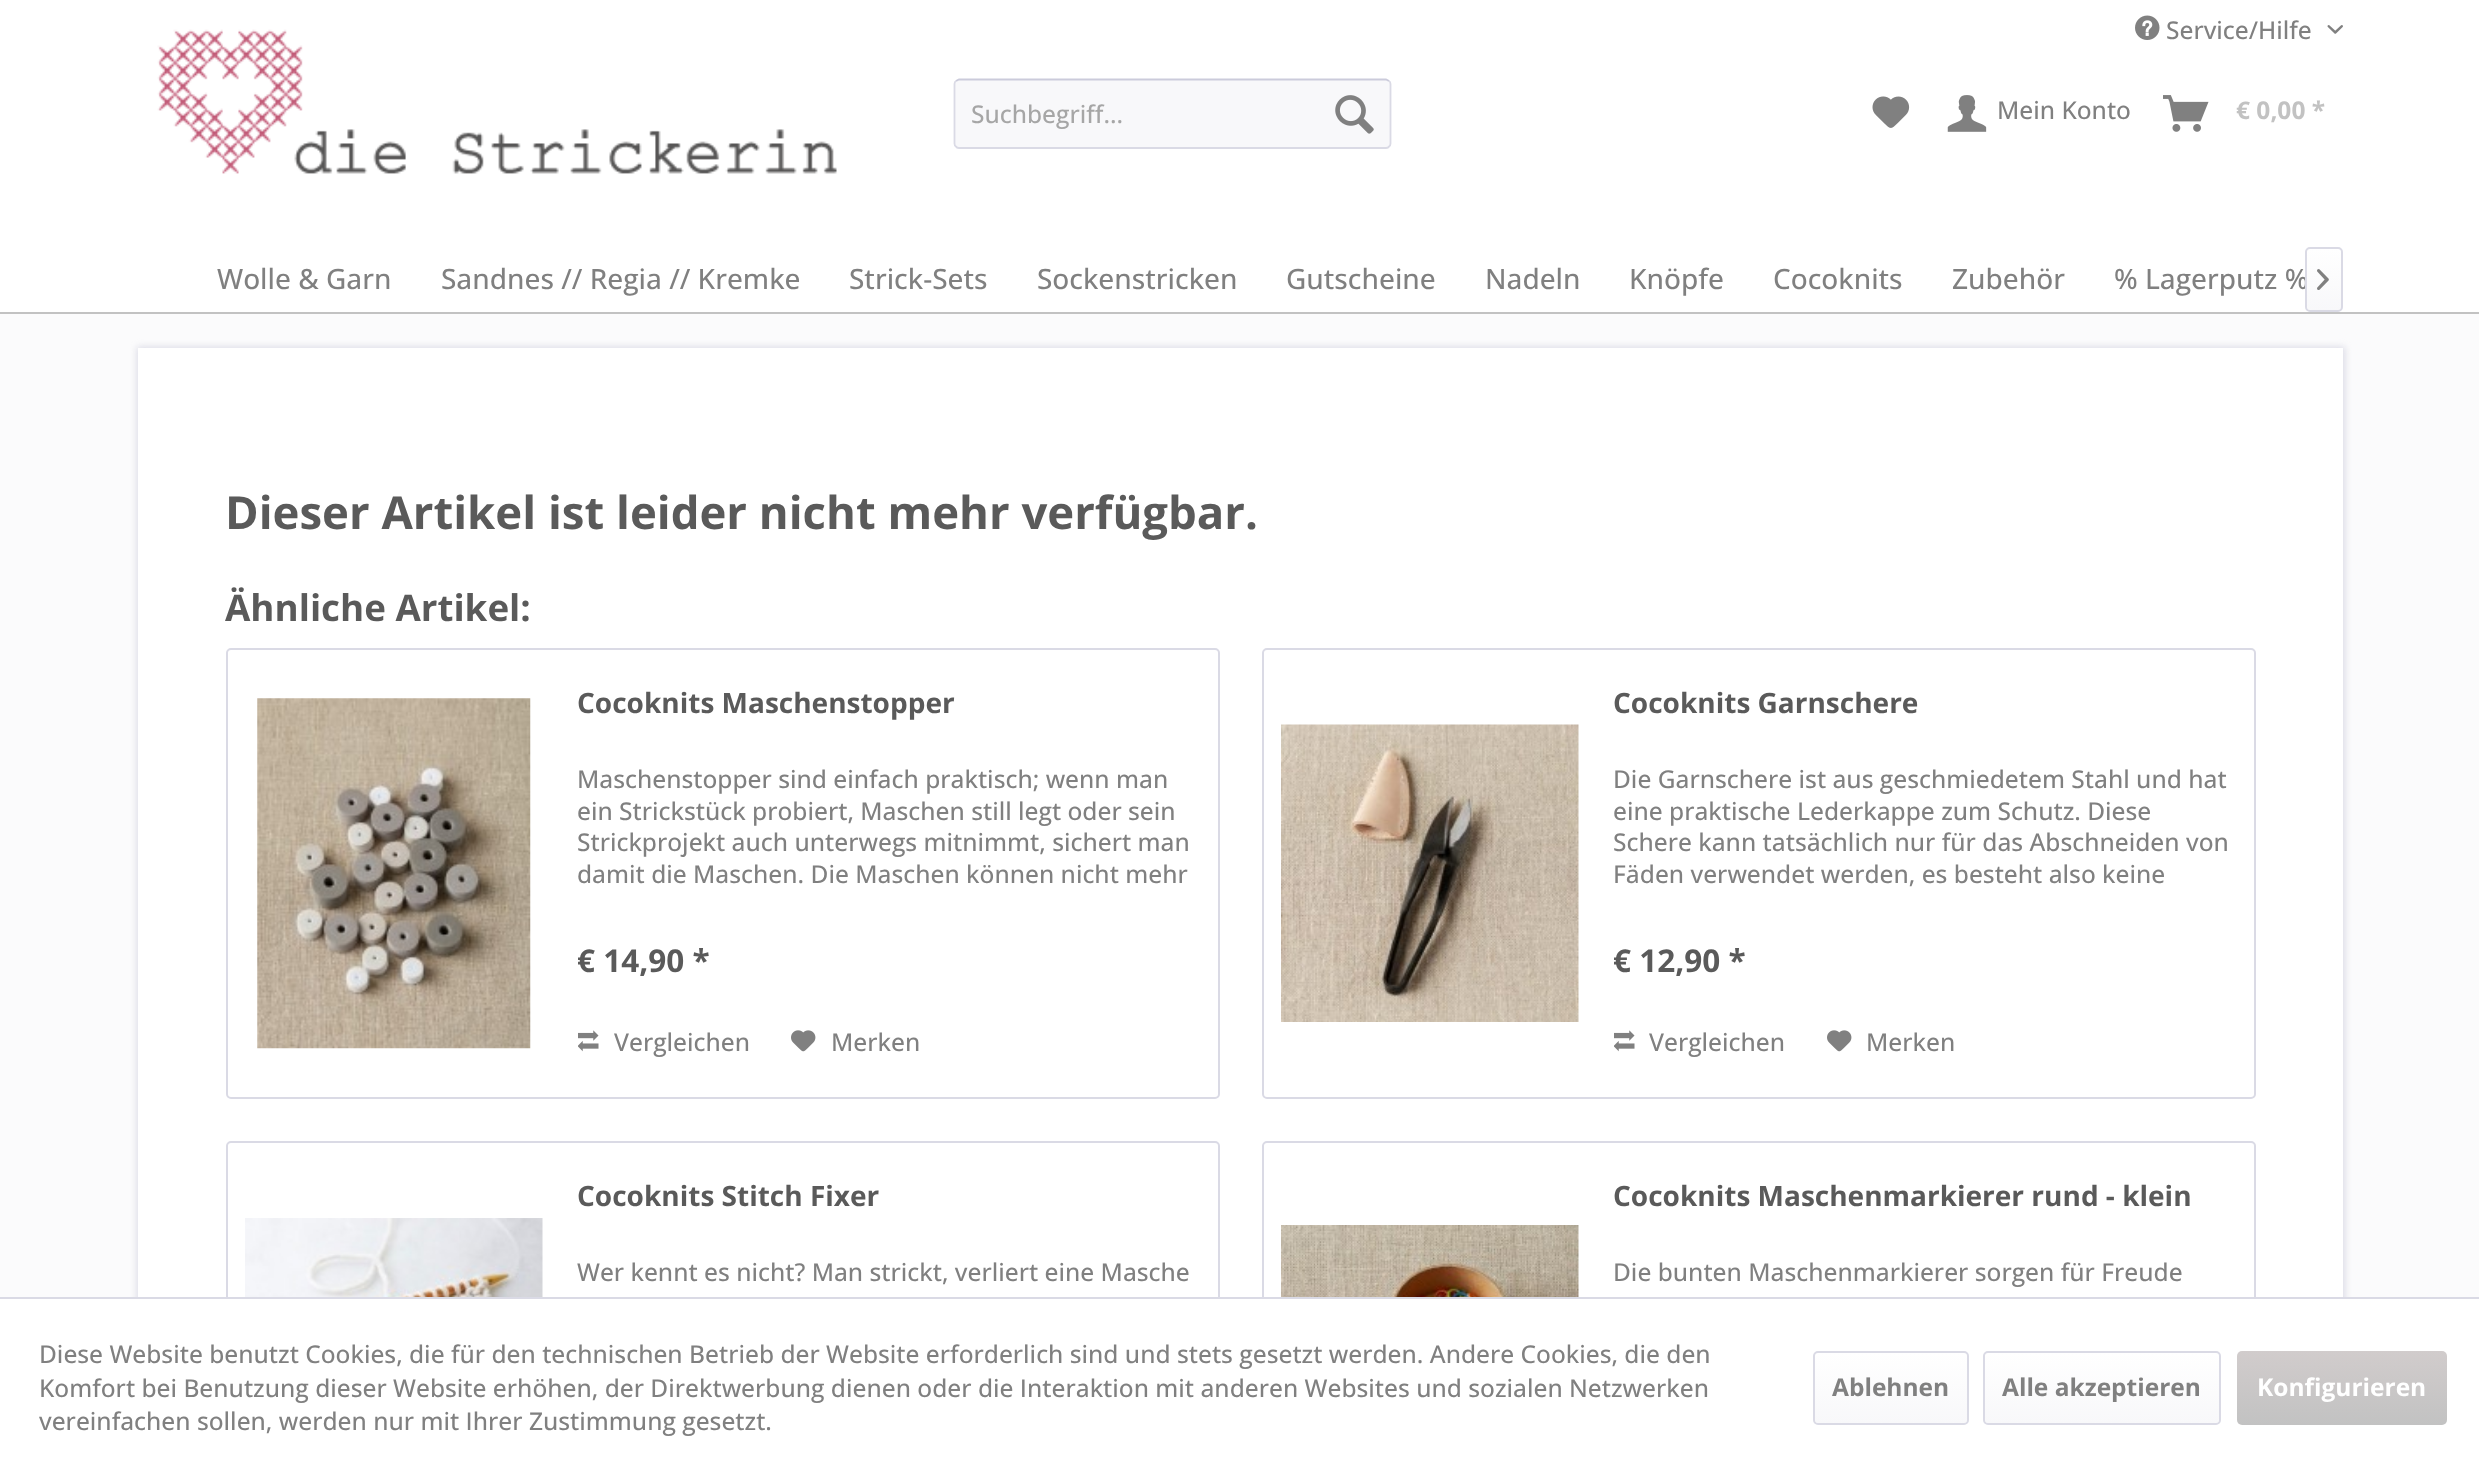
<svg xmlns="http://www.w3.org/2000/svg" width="2479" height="1475">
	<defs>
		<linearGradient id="g1" gradientUnits="userSpaceOnUse" x1="2324" y1="249" x2="2324" y2="310"><stop offset="0" stop-color="#FFFFFF" /><stop offset="1" stop-color="#F8F8FA" /></linearGradient>
		<linearGradient id="g2" gradientUnits="userSpaceOnUse" x1="1891" y1="1353" x2="1891" y2="1423"><stop offset="0" stop-color="#FFFFFF" /><stop offset="1" stop-color="#F8F8FA" /></linearGradient>
		<linearGradient id="g3" gradientUnits="userSpaceOnUse" x1="2102" y1="1353" x2="2102" y2="1423"><stop offset="0" stop-color="#FFFFFF" /><stop offset="1" stop-color="#F8F8FA" /></linearGradient>
		<linearGradient id="g4" gradientUnits="userSpaceOnUse" x1="2342" y1="1351" x2="2342" y2="1425"><stop offset="0" stop-color="#D1CCCC" /><stop offset="1" stop-color="#C2C2C2" /></linearGradient>
	</defs>
	<rect width="100%" height="100%" fill="#FBFBFC" />
	<rect x="0" y="0" width="2479" height="312" fill="#FFFFFF" />
	<image x="2135" y="15" width="25" height="25" href="assets/img1.png" />
	<text x="2166" y="39" font-family="Open Sans" font-size="24.5" font-weight="500" fill="#808080">Service/Hilfe</text>
	<image x="2327" y="25" width="16" height="9" href="assets/img2.png" />
	<image x="157" y="29" width="680" height="145" href="assets/img3.png" />
	<rect x="954" y="79" width="437" height="70" rx="5" fill="#F8F8FA" />
	<path d="M956 81L959 79.5H1386L1389 81" fill="none" stroke="#CBCBDB" stroke-width="1.8" />
	<path d="M1389 81C1390 81.5 1390.5 83 1390.5 84V143.5C1390.5 144.5 1390 146 1389 146.5C1388.5 147.5 1387 148 1386 148H959C958 148 956.5 147.5 956 146.5C955 146 954.5 144.5 954.5 143.5V84C954.5 83 955 81.5 956 81" fill="none" stroke="#DADAE5" stroke-width="1.8" />
	<text x="971" y="123" font-family="Open Sans" font-size="24.5" font-weight="500" fill="#A6A6A6">Suchbegriff...</text>
	<image x="1335" y="95" width="39" height="39" href="assets/img4.png" />
	<image x="1872" y="96" width="38" height="32" href="assets/img5.png" />
	<image x="1947" y="95" width="40" height="37" href="assets/img6.png" />
	<text x="1997" y="119" font-family="Open Sans" font-size="24.5" font-weight="500" fill="#808080">Mein Konto</text>
	<image x="2163" y="95" width="46" height="37" href="assets/img7.png" />
	<text x="2236" y="119" font-family="Open Sans" font-size="24.5" font-weight="700" fill="#C2C2C2">€ 0,00 *</text>
	<rect x="0" y="312" width="2479" height="2" fill="#C2C2C2" />
	<g font-family="Open Sans" font-size="28" font-weight="500" fill="#808080">
		<text x="217" y="289">Wolle &amp; Garn</text>
		<text x="441" y="289">Sandnes // Regia // Kremke</text>
		<text x="849" y="289">Strick-Sets</text>
		<text x="1037" y="289">Sockenstricken</text>
		<text x="1286" y="289">Gutscheine</text>
		<text x="1485" y="289">Nadeln</text>
		<text x="1629" y="289">Knöpfe</text>
		<text x="1773" y="289">Cocoknits</text>
		<text x="1952" y="289">Zubehör</text>
		<text x="2114" y="289">% Lagerputz %</text>
	</g>
	<rect x="2307" y="249" width="35" height="61" rx="4" fill="url(#g1)" />
	<rect x="2306" y="248" width="36" height="63" rx="4" fill="none" stroke="#DADAE5" stroke-width="2" />
	<image x="2317" y="269" width="12" height="21" href="assets/img8.png" />
	<rect x="137" y="347" width="2208" height="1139" fill="#DADAE5" filter="blur(3.5px)" />
	<rect x="138" y="348" width="2205" height="949" fill="#FFFFFF" />
	<text x="225" y="529" font-family="Open Sans" font-size="45.5" font-weight="700" fill="#5A5A5A">Dieser Artikel ist leider nicht mehr verfügbar.</text>
	<text x="225" y="621" font-family="Open Sans" font-size="36.75" font-weight="700" fill="#5A5A5A">Ähnliche Artikel:</text>
	<rect x="227" y="649" width="992" height="449" rx="4" fill="none" stroke="#DADAE5" stroke-width="2" />
	<image x="257" y="698" width="274" height="351" href="assets/img9.png" />
	<text x="577" y="713" font-family="Open Sans" font-size="28" font-weight="700" fill="#5A5A5A">Cocoknits Maschenstopper</text>
	<g font-family="Open Sans" font-size="24.5" font-weight="500" fill="#808080">
		<text x="577" y="788">Maschenstopper sind einfach praktisch; wenn man</text>
		<text x="577" y="820">ein Strickstück probiert, Maschen still legt oder sein</text>
		<text x="577" y="851">Strickprojekt auch unterwegs mitnimmt, sichert man</text>
		<text x="577" y="883">damit die Maschen. Die Maschen können nicht mehr</text>
	</g>
	<text x="577" y="972" font-family="Open Sans" font-size="31.5" font-weight="700" fill="#5A5A5A">€ 14,90 *</text>
	<image x="578" y="1030" width="21" height="22" href="assets/img10.png" />
	<text x="614" y="1051" font-family="Open Sans" font-size="24.5" font-weight="500" fill="#808080">Vergleichen</text>
	<image x="791" y="1030" width="25" height="22" href="assets/img11.png" />
	<text x="831" y="1051" font-family="Open Sans" font-size="24.5" font-weight="500" fill="#808080">Merken</text>
	<rect x="1263" y="649" width="992" height="449" rx="4" fill="none" stroke="#DADAE5" stroke-width="2" />
	<text x="1613" y="713" font-family="Open Sans" font-size="28" font-weight="700" fill="#5A5A5A">Cocoknits Garnschere</text>
	<image x="1281" y="724" width="298" height="298" href="assets/img12.png" />
	<g font-family="Open Sans" font-size="24.5" font-weight="500" fill="#808080">
		<text x="1613" y="788">Die Garnschere ist aus geschmiedetem Stahl und hat</text>
		<text x="1613" y="820">eine praktische Lederkappe zum Schutz. Diese</text>
		<text x="1613" y="851">Schere kann tatsächlich nur für das Abschneiden von</text>
		<text x="1613" y="883">Fäden verwendet werden, es besteht also keine</text>
	</g>
	<text x="1613" y="972" font-family="Open Sans" font-size="31.5" font-weight="700" fill="#5A5A5A">€ 12,90 *</text>
	<image x="1614" y="1030" width="21" height="22" href="assets/img10.png" />
	<text x="1649" y="1051" font-family="Open Sans" font-size="24.5" font-weight="500" fill="#808080">Vergleichen</text>
	<image x="1827" y="1030" width="25" height="22" href="assets/img11.png" />
	<text x="1866" y="1051" font-family="Open Sans" font-size="24.5" font-weight="500" fill="#808080">Merken</text>
	<rect x="227" y="1142" width="992" height="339" rx="4" fill="none" stroke="#DADAE5" stroke-width="2" />
	<text x="577" y="1206" font-family="Open Sans" font-size="28" font-weight="700" fill="#5A5A5A">Cocoknits Stitch Fixer</text>
	<image x="245" y="1218" width="298" height="79" href="assets/img13.png" />
	<text x="577" y="1281" font-family="Open Sans" font-size="24.5" font-weight="500" fill="#808080">Wer kennt es nicht? Man strickt, verliert eine Masche</text>
	<rect x="1263" y="1142" width="992" height="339" rx="4" fill="none" stroke="#DADAE5" stroke-width="2" />
	<text x="1613" y="1206" font-family="Open Sans" font-size="28" font-weight="700" fill="#5A5A5A">Cocoknits Maschenmarkierer rund - klein</text>
	<image x="1281" y="1225" width="298" height="72" href="assets/img14.png" />
	<text x="1613" y="1281" font-family="Open Sans" font-size="24.5" font-weight="500" fill="#808080">Die bunten Maschenmarkierer sorgen für Freude</text>
	<rect x="0" y="1299" width="2479" height="176" fill="#FFFFFF" />
	<rect x="0" y="1297" width="2479" height="2" fill="#DADAE5" />
	<g font-family="Open Sans" font-size="24.5" font-weight="500" fill="#808080">
		<text x="39" y="1363">Diese Website benutzt Cookies, die für den technischen Betrieb der Website erforderlich sind und stets gesetzt werden. Andere Cookies, die den</text>
		<text x="39" y="1397">Komfort bei Benutzung dieser Website erhöhen, der Direktwerbung dienen oder die Interaktion mit anderen Websites und sozialen Netzwerken</text>
		<text x="39" y="1430">vereinfachen sollen, werden nur mit Ihrer Zustimmung gesetzt.</text>
	</g>
	<rect x="1815" y="1353" width="152" height="70" rx="4" fill="url(#g2)" />
	<rect x="1814" y="1352" width="154" height="72" rx="4" fill="none" stroke="#DADAE5" stroke-width="2" />
	<text x="1832" y="1396" font-family="Open Sans" font-size="24.5" font-weight="700" fill="#808080">Ablehnen</text>
	<rect x="1985" y="1353" width="234" height="70" rx="4" fill="url(#g3)" />
	<rect x="1984" y="1352" width="236" height="72" rx="4" fill="none" stroke="#DADAE5" stroke-width="2" />
	<text x="2002" y="1396" font-family="Open Sans" font-size="24.5" font-weight="700" fill="#808080">Alle akzeptieren</text>
	<rect x="2237" y="1351" width="210" height="74" rx="5" fill="url(#g4)" />
	<text x="2257" y="1396" font-family="Open Sans" font-size="24.5" font-weight="700" fill="#FFFFFF">Konfigurieren</text>
</svg>
